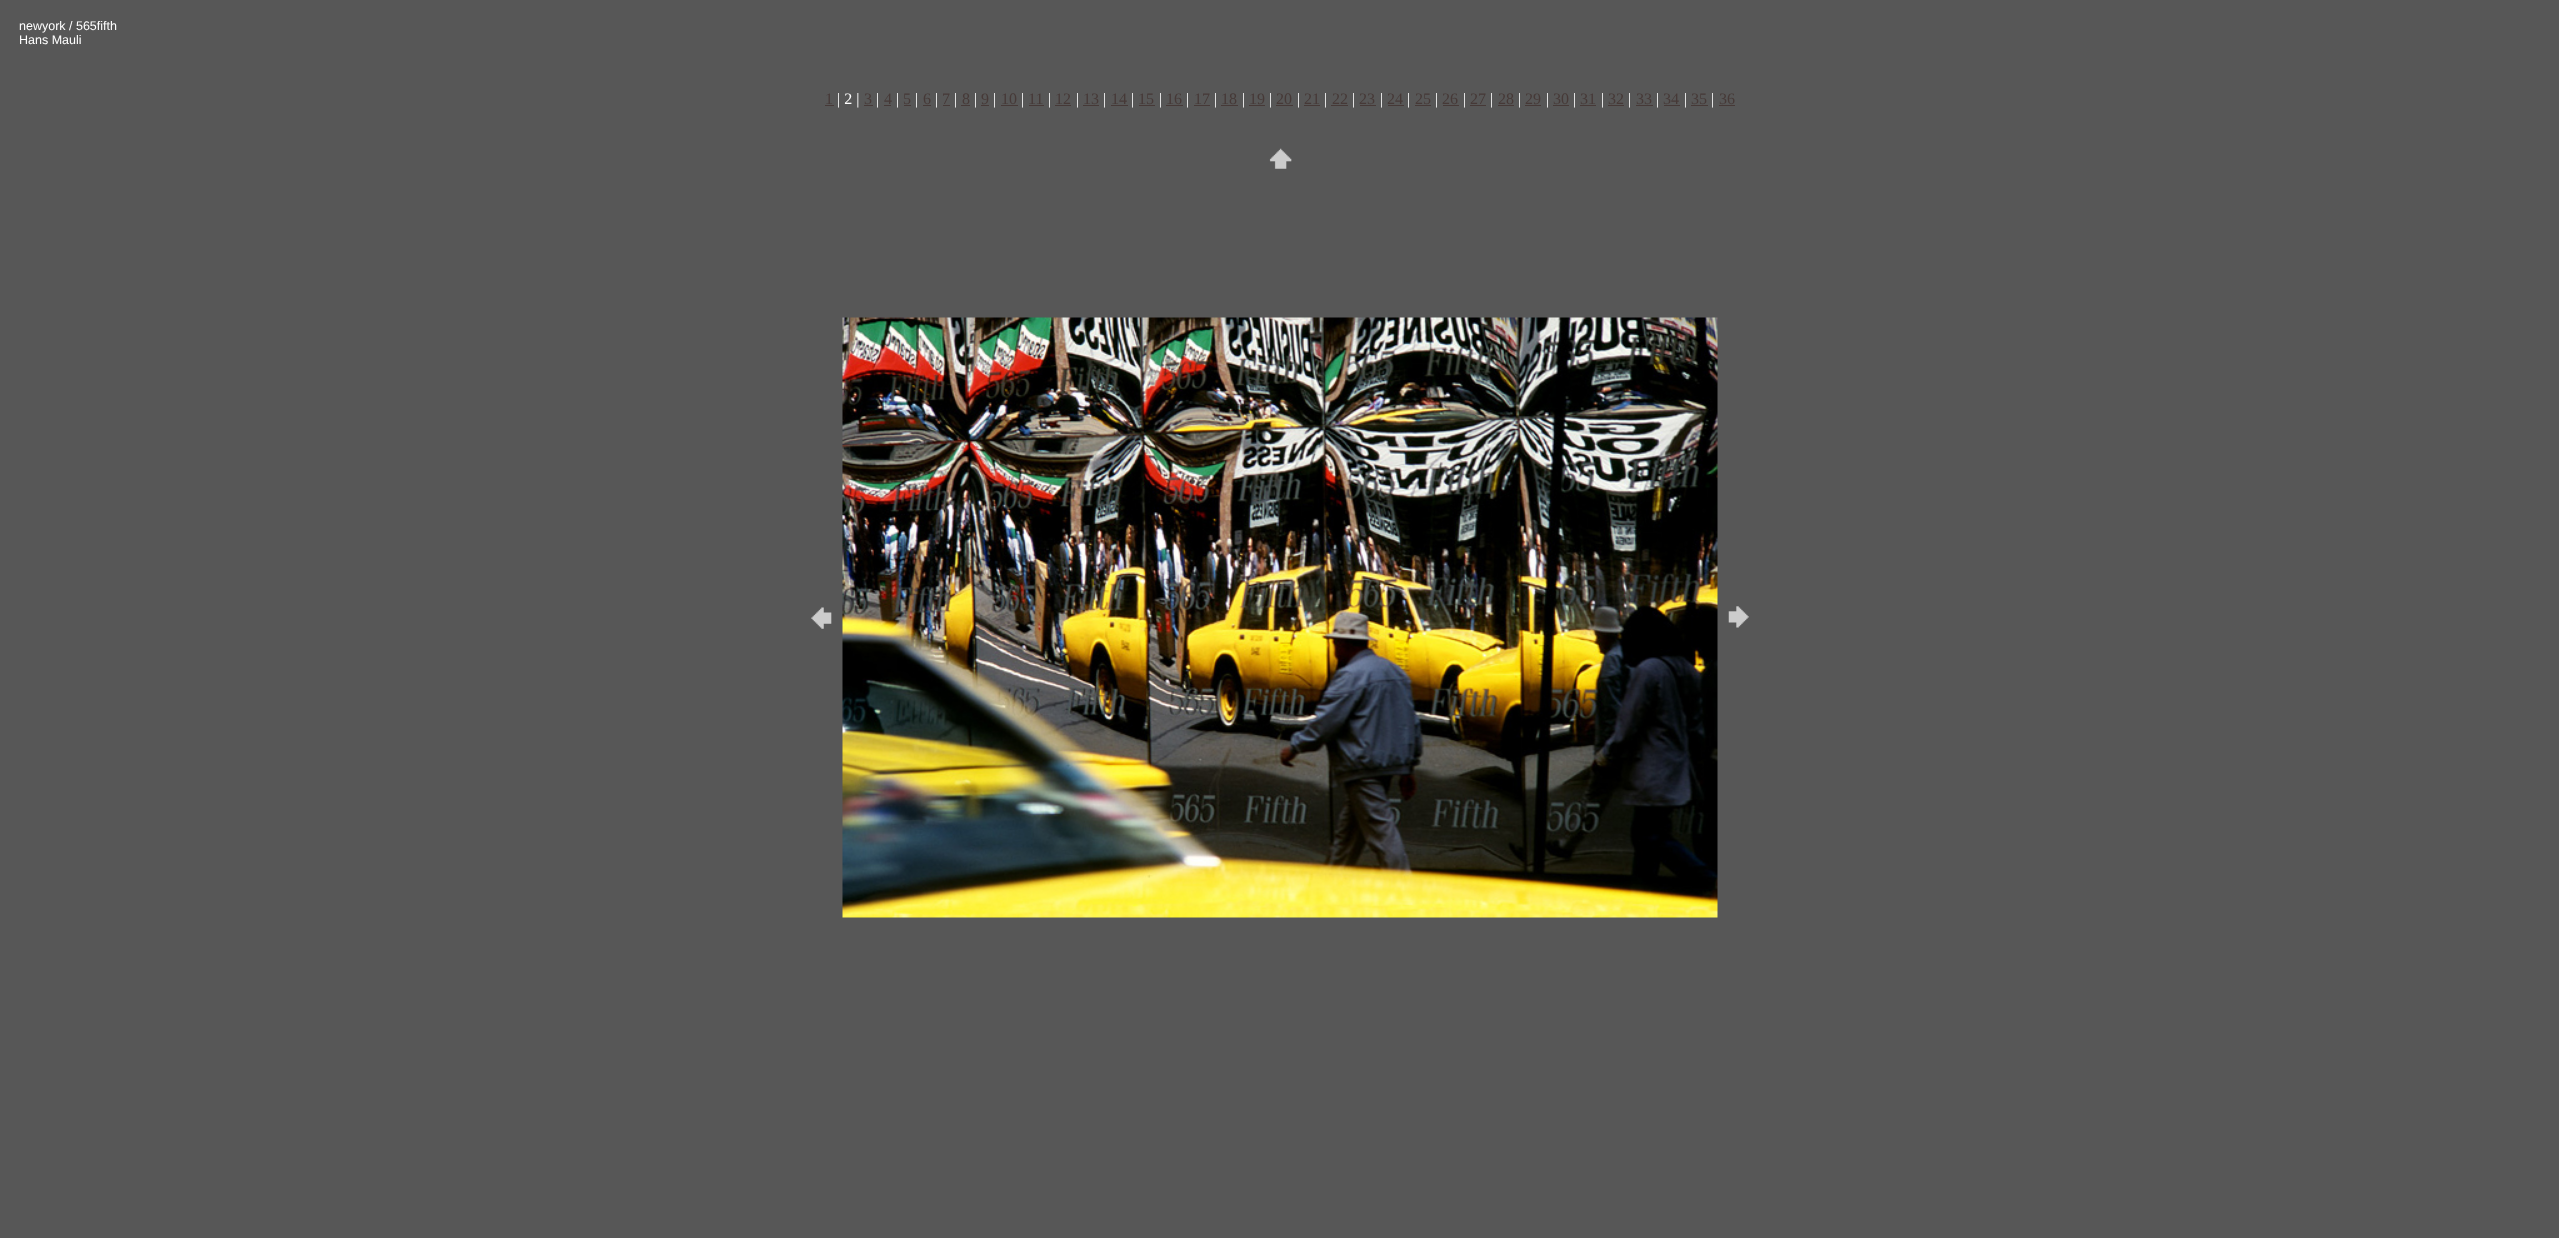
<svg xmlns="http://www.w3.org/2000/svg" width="2559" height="1238">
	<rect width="100%" height="100%" fill="#575757" />
	<g font-family="Liberation Sans" font-size="12.5" fill="#FFFFFF">
		<text x="19" y="30">newyork / 565fifth</text>
		<text x="19" y="44">Hans Mauli</text>
	</g>
	<text x="825" y="104" font-family="Liberation Serif" font-size="16" fill="#463937">1</text>
	<rect x="825" y="105" width="9" height="1" fill="#463937" />
	<text x="837" y="104" font-family="Liberation Serif" font-size="16" fill="#FFFFFF">| 2 |</text>
	<text x="864" y="104" font-family="Liberation Serif" font-size="16" fill="#463937">3</text>
	<rect x="864" y="105" width="9" height="1" fill="#463937" />
	<text x="876" y="104" font-family="Liberation Serif" font-size="16" fill="#FFFFFF">|</text>
	<text x="884" y="104" font-family="Liberation Serif" font-size="16" fill="#463937">4</text>
	<rect x="884" y="105" width="7" height="1" fill="#463937" />
	<text x="896" y="104" font-family="Liberation Serif" font-size="16" fill="#FFFFFF">|</text>
	<text x="903" y="104" font-family="Liberation Serif" font-size="16" fill="#463937">5</text>
	<rect x="904" y="105" width="7" height="1" fill="#463937" />
	<text x="915" y="104" font-family="Liberation Serif" font-size="16" fill="#FFFFFF">|</text>
	<text x="923" y="104" font-family="Liberation Serif" font-size="16" fill="#463937">6</text>
	<rect x="923" y="105" width="8" height="1" fill="#463937" />
	<text x="935" y="104" font-family="Liberation Serif" font-size="16" fill="#FFFFFF">|</text>
	<text x="942" y="104" font-family="Liberation Serif" font-size="16" fill="#463937">7</text>
	<rect x="943" y="105" width="7" height="1" fill="#463937" />
	<text x="954" y="104" font-family="Liberation Serif" font-size="16" fill="#FFFFFF">|</text>
	<text x="962" y="104" font-family="Liberation Serif" font-size="16" fill="#463937">8</text>
	<rect x="961" y="105" width="9" height="1" fill="#463937" />
	<text x="974" y="104" font-family="Liberation Serif" font-size="16" fill="#FFFFFF">|</text>
	<text x="981" y="104" font-family="Liberation Serif" font-size="16" fill="#463937">9</text>
	<rect x="981" y="105" width="8" height="1" fill="#463937" />
	<text x="993" y="104" font-family="Liberation Serif" font-size="16" fill="#FFFFFF">|</text>
	<text x="1001" y="104" font-family="Liberation Serif" font-size="16" fill="#463937">10</text>
	<rect x="1001" y="105" width="17" height="1" fill="#463937" />
	<text x="1021" y="104" font-family="Liberation Serif" font-size="16" fill="#FFFFFF">|</text>
	<text x="1028" y="104" font-family="Liberation Serif" font-size="16" fill="#463937">11</text>
	<rect x="1029" y="105" width="15" height="1" fill="#463937" />
	<text x="1048" y="104" font-family="Liberation Serif" font-size="16" fill="#FFFFFF">|</text>
	<text x="1055" y="104" font-family="Liberation Serif" font-size="16" fill="#463937">12</text>
	<rect x="1055" y="105" width="16" height="1" fill="#463937" />
	<text x="1076" y="104" font-family="Liberation Serif" font-size="16" fill="#FFFFFF">|</text>
	<text x="1083" y="104" font-family="Liberation Serif" font-size="16" fill="#463937">13</text>
	<rect x="1083" y="105" width="16" height="1" fill="#463937" />
	<text x="1103" y="104" font-family="Liberation Serif" font-size="16" fill="#FFFFFF">|</text>
	<text x="1111" y="104" font-family="Liberation Serif" font-size="16" fill="#463937">14</text>
	<rect x="1111" y="105" width="17" height="1" fill="#463937" />
	<text x="1131" y="104" font-family="Liberation Serif" font-size="16" fill="#FFFFFF">|</text>
	<text x="1138" y="104" font-family="Liberation Serif" font-size="16" fill="#463937">15</text>
	<rect x="1139" y="105" width="16" height="1" fill="#463937" />
	<text x="1159" y="104" font-family="Liberation Serif" font-size="16" fill="#FFFFFF">|</text>
	<text x="1166" y="104" font-family="Liberation Serif" font-size="16" fill="#463937">16</text>
	<rect x="1166" y="105" width="17" height="1" fill="#463937" />
	<text x="1186" y="104" font-family="Liberation Serif" font-size="16" fill="#FFFFFF">|</text>
	<text x="1194" y="104" font-family="Liberation Serif" font-size="16" fill="#463937">17</text>
	<rect x="1194" y="105" width="16" height="1" fill="#463937" />
	<text x="1214" y="104" font-family="Liberation Serif" font-size="16" fill="#FFFFFF">|</text>
	<text x="1221" y="104" font-family="Liberation Serif" font-size="16" fill="#463937">18</text>
	<rect x="1221" y="105" width="17" height="1" fill="#463937" />
	<text x="1242" y="104" font-family="Liberation Serif" font-size="16" fill="#FFFFFF">|</text>
	<text x="1249" y="104" font-family="Liberation Serif" font-size="16" fill="#463937">19</text>
	<rect x="1249" y="105" width="16" height="1" fill="#463937" />
	<text x="1269" y="104" font-family="Liberation Serif" font-size="16" fill="#FFFFFF">|</text>
	<text x="1276" y="104" font-family="Liberation Serif" font-size="16" fill="#463937">20</text>
	<rect x="1276" y="105" width="17" height="1" fill="#463937" />
	<text x="1297" y="104" font-family="Liberation Serif" font-size="16" fill="#FFFFFF">|</text>
	<text x="1304" y="104" font-family="Liberation Serif" font-size="16" fill="#463937">21</text>
	<rect x="1304" y="105" width="16" height="1" fill="#463937" />
	<text x="1324" y="104" font-family="Liberation Serif" font-size="16" fill="#FFFFFF">|</text>
	<text x="1332" y="104" font-family="Liberation Serif" font-size="16" fill="#463937">22</text>
	<rect x="1331" y="105" width="17" height="1" fill="#463937" />
	<text x="1352" y="104" font-family="Liberation Serif" font-size="16" fill="#FFFFFF">|</text>
	<text x="1359" y="104" font-family="Liberation Serif" font-size="16" fill="#463937">23</text>
	<rect x="1360" y="105" width="16" height="1" fill="#463937" />
	<text x="1380" y="104" font-family="Liberation Serif" font-size="16" fill="#FFFFFF">|</text>
	<text x="1387" y="104" font-family="Liberation Serif" font-size="16" fill="#463937">24</text>
	<rect x="1388" y="105" width="16" height="1" fill="#463937" />
	<text x="1407" y="104" font-family="Liberation Serif" font-size="16" fill="#FFFFFF">|</text>
	<text x="1415" y="104" font-family="Liberation Serif" font-size="16" fill="#463937">25</text>
	<rect x="1415" y="105" width="16" height="1" fill="#463937" />
	<text x="1435" y="104" font-family="Liberation Serif" font-size="16" fill="#FFFFFF">|</text>
	<text x="1442" y="104" font-family="Liberation Serif" font-size="16" fill="#463937">26</text>
	<rect x="1443" y="105" width="16" height="1" fill="#463937" />
	<text x="1463" y="104" font-family="Liberation Serif" font-size="16" fill="#FFFFFF">|</text>
	<text x="1470" y="104" font-family="Liberation Serif" font-size="16" fill="#463937">27</text>
	<rect x="1470" y="105" width="16" height="1" fill="#463937" />
	<text x="1490" y="104" font-family="Liberation Serif" font-size="16" fill="#FFFFFF">|</text>
	<text x="1498" y="104" font-family="Liberation Serif" font-size="16" fill="#463937">28</text>
	<rect x="1498" y="105" width="16" height="1" fill="#463937" />
	<text x="1518" y="104" font-family="Liberation Serif" font-size="16" fill="#FFFFFF">|</text>
	<text x="1525" y="104" font-family="Liberation Serif" font-size="16" fill="#463937">29</text>
	<rect x="1525" y="105" width="16" height="1" fill="#463937" />
	<text x="1546" y="104" font-family="Liberation Serif" font-size="16" fill="#FFFFFF">|</text>
	<text x="1553" y="104" font-family="Liberation Serif" font-size="16" fill="#463937">30</text>
	<rect x="1553" y="105" width="16" height="1" fill="#463937" />
	<text x="1573" y="104" font-family="Liberation Serif" font-size="16" fill="#FFFFFF">|</text>
	<text x="1580" y="104" font-family="Liberation Serif" font-size="16" fill="#463937">31</text>
	<rect x="1580" y="105" width="16" height="1" fill="#463937" />
	<text x="1601" y="104" font-family="Liberation Serif" font-size="16" fill="#FFFFFF">|</text>
	<text x="1608" y="104" font-family="Liberation Serif" font-size="16" fill="#463937">32</text>
	<rect x="1608" y="105" width="16" height="1" fill="#463937" />
	<text x="1628" y="104" font-family="Liberation Serif" font-size="16" fill="#FFFFFF">|</text>
	<text x="1636" y="104" font-family="Liberation Serif" font-size="16" fill="#463937">33</text>
	<rect x="1636" y="105" width="17" height="1" fill="#463937" />
	<text x="1656" y="104" font-family="Liberation Serif" font-size="16" fill="#FFFFFF">|</text>
	<text x="1663" y="104" font-family="Liberation Serif" font-size="16" fill="#463937">34</text>
	<rect x="1664" y="105" width="16" height="1" fill="#463937" />
	<text x="1684" y="104" font-family="Liberation Serif" font-size="16" fill="#FFFFFF">|</text>
	<text x="1691" y="104" font-family="Liberation Serif" font-size="16" fill="#463937">35</text>
	<rect x="1691" y="105" width="17" height="1" fill="#463937" />
	<text x="1711" y="104" font-family="Liberation Serif" font-size="16" fill="#FFFFFF">|</text>
	<text x="1719" y="104" font-family="Liberation Serif" font-size="16" fill="#463937">36</text>
	<rect x="1719" y="105" width="16" height="1" fill="#463937" />
	<image x="1269" y="148" width="23" height="21" href="assets/img1.png" />
	<image x="811" y="607" width="21" height="22" href="assets/img2.png" />
	<image x="842" y="317" width="876" height="601" href="assets/img3.png" />
	<image x="1728" y="606" width="21" height="22" href="assets/img4.png" />
</svg>
